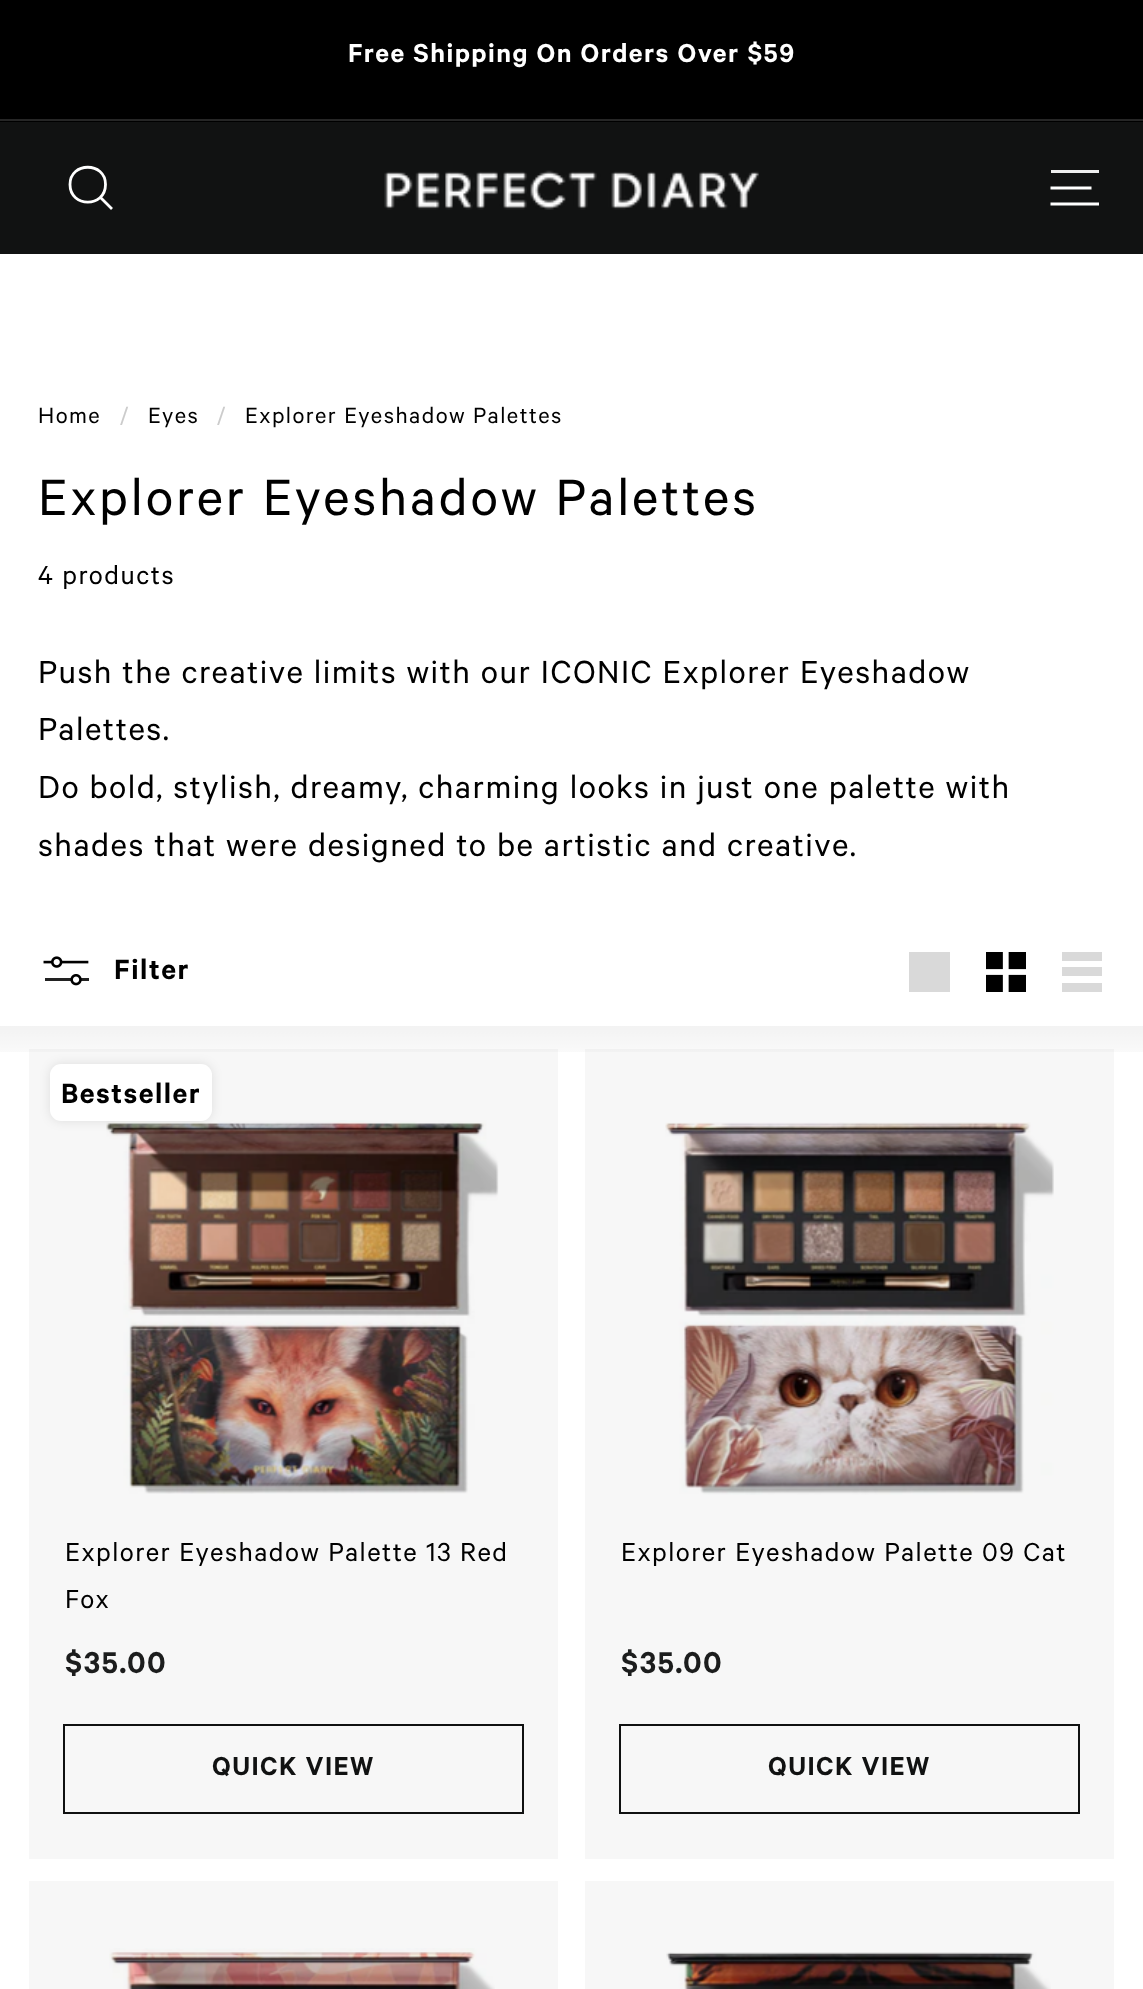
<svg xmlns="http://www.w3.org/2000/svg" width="1143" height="1989">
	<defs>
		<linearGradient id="g1" gradientUnits="userSpaceOnUse" x1="572" y1="1026" x2="572" y2="1071"><stop offset="0" stop-color="#000000" stop-opacity="0.05" /><stop offset="1" stop-color="#000000" stop-opacity="0" /></linearGradient>
	</defs>
	<rect width="100%" height="100%" fill="#FFFFFF" />
	<rect x="0" y="0" width="1143" height="122" fill="#000000" />
	<text x="348" y="62" font-family="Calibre" font-size="29.25" font-weight="600" letter-spacing="1.45" fill="#FFFFFF">Free Shipping On Orders Over $59</text>
	<rect x="0" y="119" width="1143" height="2" fill="#262626" />
	<rect x="0" y="122" width="1143" height="132" fill="#111212" />
	<path d="M105.5 184.5C105.5 208 70 208 70 184.5C70 161.5 105.5 161.5 105.5 184.5ZM112 209L100.5 197.5" fill="none" stroke="#FFFFFF" stroke-width="2.8" />
	<image x="384" y="170" width="375" height="40" href="assets/img1.png" />
	<rect x="1051" y="170" width="48" height="3" fill="#EFEFEF" />
	<path d="M1050.5 188H1091.5M1050.5 204H1099" fill="none" stroke="#FFFFFF" stroke-width="2.8" />
	<text x="38" y="423" font-family="Calibre" font-size="24.9" letter-spacing="1.45" fill="#000000">Home</text>
	<text x="120" y="423" font-family="Calibre" font-size="24.9" letter-spacing="1.45" fill="#CCCCCC">/</text>
	<text x="148" y="423" font-family="Calibre" font-size="24.9" letter-spacing="1.45" fill="#000000">Eyes</text>
	<text x="217" y="423" font-family="Calibre" font-size="24.9" letter-spacing="1.45" fill="#CCCCCC">/</text>
	<text x="245" y="423" font-family="Calibre" font-size="24.9" letter-spacing="1.45" fill="#000000">Explorer Eyeshadow Palettes</text>
	<text x="38" y="515" font-family="Calibre" font-size="57.4" letter-spacing="2.9" fill="#000000">Explorer Eyeshadow Palettes</text>
	<text x="38" y="584" font-family="Calibre" font-size="29.25" letter-spacing="1.45" fill="#000000">4 products</text>
	<g font-family="Calibre" font-size="36" letter-spacing="1.45" fill="#000000">
		<text x="38" y="683">Push the creative limits with our ICONIC Explorer Eyeshadow</text>
		<text x="38" y="740">Palettes.</text>
		<text x="38" y="798">Do bold, stylish, dreamy, charming looks in just one palette with</text>
		<text x="38" y="856">shades that were designed to be artistic and creative.</text>
	</g>
	<image x="43" y="956" width="46" height="30" href="assets/img2.png" />
	<text x="114" y="979" font-family="Calibre" font-size="31.5" font-weight="600" letter-spacing="1.5" fill="#000000">Filter</text>
	<rect x="909" y="952" width="41" height="40" fill="#D9D9D9" />
	<image x="986" y="952" width="40" height="40" href="assets/img3.png" />
	<path d="M1062 952H1102V961H1062ZM1062 967H1102V976H1062ZM1062 983H1102V992H1062Z" fill="#D9D9D9" />
	<image x="106" y="1120" width="393" height="374" href="assets/img4.png" />
	<rect x="64" y="1725" width="459" height="88" fill="none" stroke="#111212" stroke-width="2" />
	<rect x="29" y="1049" width="529" height="810" fill="#000000" fill-opacity="0.03" />
	<image x="665" y="1122" width="389" height="373" href="assets/img5.png" />
	<rect x="620" y="1725" width="459" height="88" fill="none" stroke="#111212" stroke-width="2" />
	<rect x="585" y="1049" width="529" height="810" fill="#000000" fill-opacity="0.03" />
	<rect x="0" y="1026" width="1143" height="26" fill="url(#g1)" />
	<rect x="50" y="1064" width="162" height="57" rx="11" fill="#000000" fill-opacity="0.1" filter="blur(5.5px)" />
	<rect x="50" y="1064" width="162" height="57" rx="11" fill="#FFFFFF" />
	<text x="61" y="1103" font-family="Calibre" font-size="31.5" font-weight="600" letter-spacing="1.45" fill="#000000">Bestseller</text>
	<g font-family="Calibre" font-size="29.25" letter-spacing="1.45" fill="#000000">
		<text x="65" y="1561">Explorer Eyeshadow Palette 13 Red</text>
		<text x="65" y="1608">Fox</text>
	</g>
	<text x="65" y="1673" font-family="Calibre" font-size="34" font-weight="600" letter-spacing="1.45" fill="#1C1D1D">$35.00</text>
	<text x="212" y="1775" font-family="Calibre" font-size="29.25" font-weight="600" letter-spacing="1.45" fill="#111212">QUICK VIEW</text>
	<text x="621" y="1561" font-family="Calibre" font-size="29.25" letter-spacing="1.45" fill="#000000">Explorer Eyeshadow Palette 09 Cat</text>
	<text x="621" y="1673" font-family="Calibre" font-size="34" font-weight="600" letter-spacing="1.45" fill="#1C1D1D">$35.00</text>
	<text x="768" y="1775" font-family="Calibre" font-size="29.25" font-weight="600" letter-spacing="1.45" fill="#111212">QUICK VIEW</text>
	<image x="109" y="1948" width="386" height="41" href="assets/img6.png" />
	<rect x="29" y="1881" width="529" height="108" fill="#000000" fill-opacity="0.03" />
	<image x="666" y="1952" width="385" height="37" href="assets/img7.png" />
	<rect x="585" y="1881" width="529" height="108" fill="#000000" fill-opacity="0.03" />
</svg>
